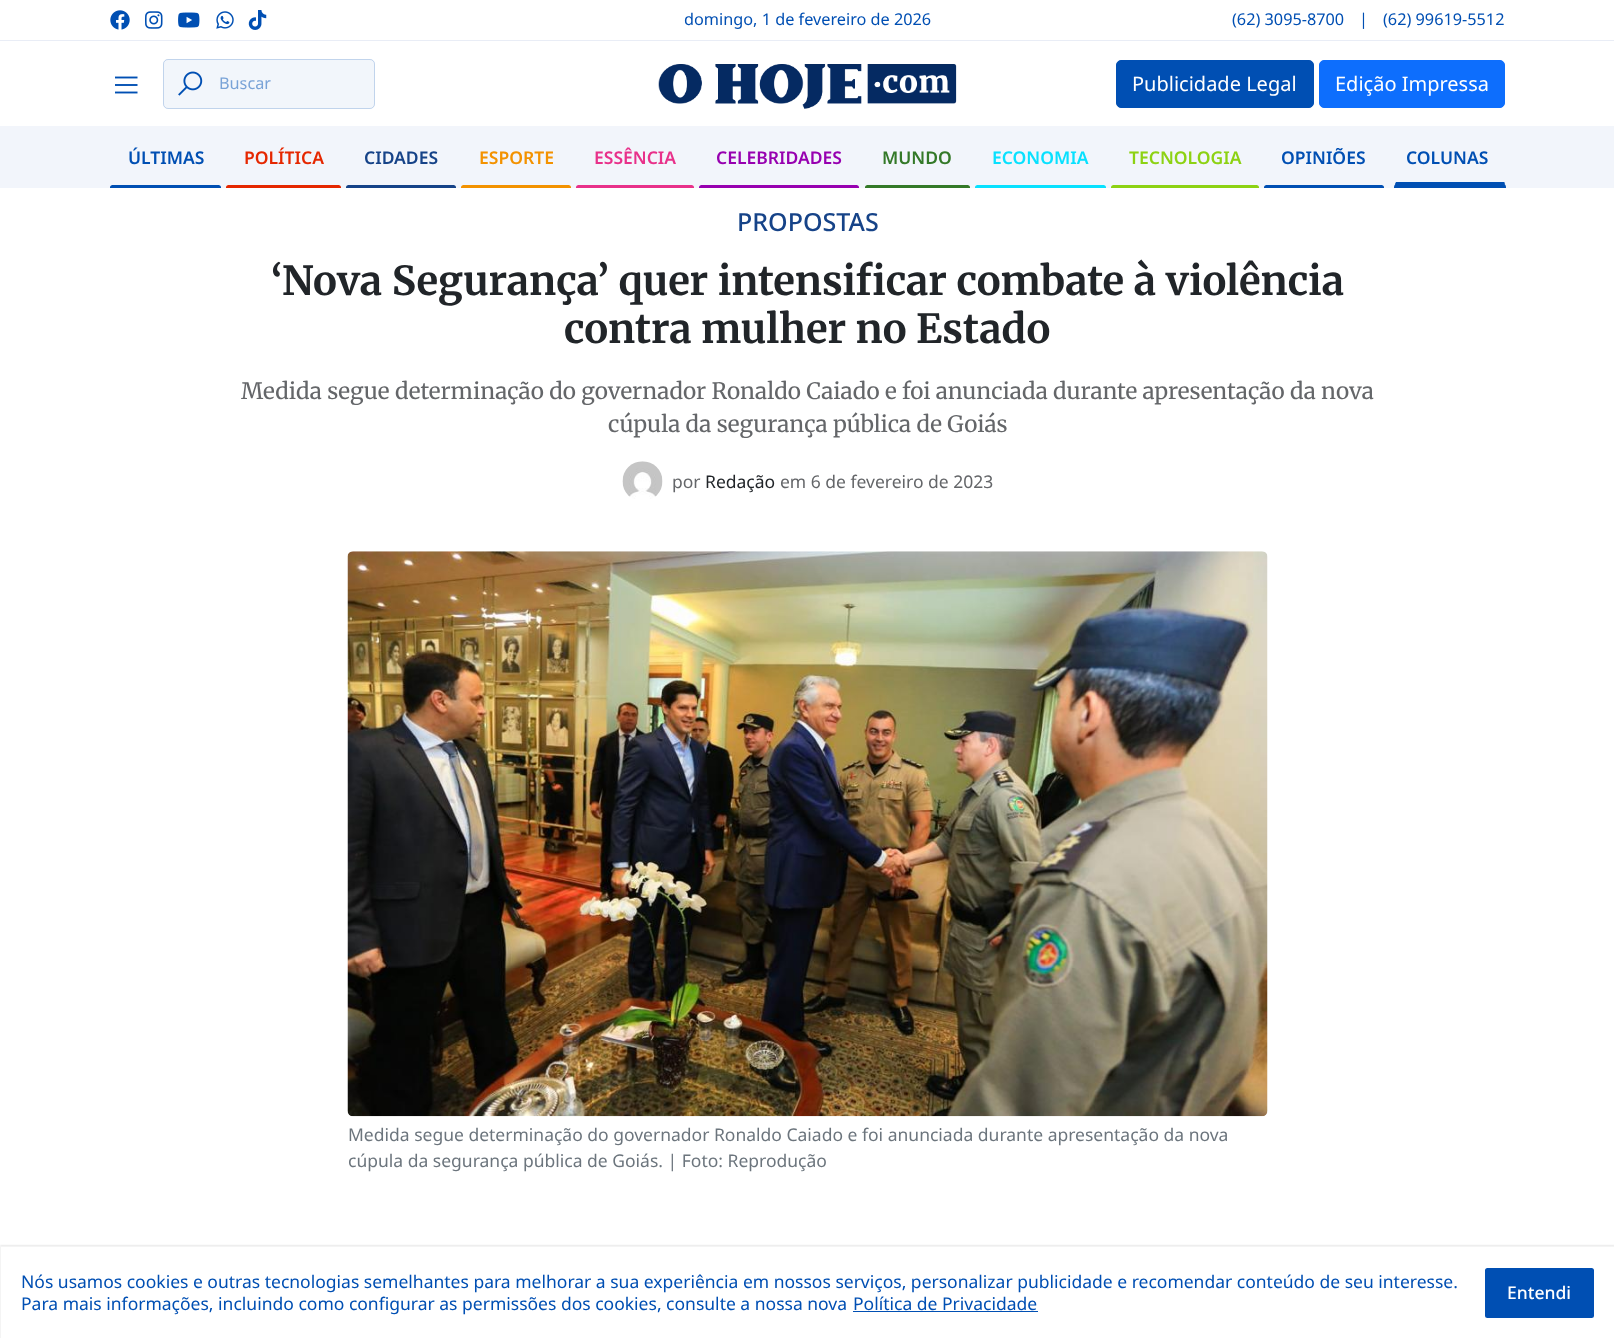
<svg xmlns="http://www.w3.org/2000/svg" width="1614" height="1338">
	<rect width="100%" height="100%" fill="#FFFFFF" />
	<rect x="0" y="40" width="1614" height="1" fill="#E9EDF6" />
	<image x="110" y="10" width="20" height="20" href="assets/img1.png" />
	<image x="145" y="11" width="18" height="18" href="assets/img2.png" />
	<image x="178" y="12" width="22" height="16" href="assets/img3.png" />
	<image x="216" y="11" width="18" height="18" href="assets/img4.png" />
	<image x="248" y="10" width="19" height="20" href="assets/img5.png" />
	<g font-family="Noto Sans" font-size="16.25" fill="#004FB3">
		<text x="684" y="25">domingo, 1 de fevereiro de 2026</text>
		<text x="1232" y="25">(62) 3095-8700</text>
		<text x="1359" y="25">|</text>
		<text x="1383" y="25">(62) 99619-5512</text>
	</g>
	<image x="115" y="76" width="23" height="18" href="assets/img6.png" />
	<rect x="163" y="59" width="212" height="50" rx="5" fill="#F2F6FB" />
	<rect x="163.5" y="59.5" width="211" height="49" rx="4.5" fill="none" stroke="#004FB3" stroke-opacity="0.2" />
	<image x="178" y="71" width="25" height="25" href="assets/img7.png" />
	<text x="219" y="89" font-family="Noto Sans" font-size="16.25" fill="#79A3D7">Buscar</text>
	<image x="658" y="64" width="299" height="45" href="assets/img8.png" />
	<rect x="1116.5" y="60.5" width="197" height="47" rx="4.5" fill="#004FB3" stroke="#004FB3" />
	<text x="1132" y="91" font-family="Noto Sans" font-size="20" fill="#FFFFFF">Publicidade Legal</text>
	<rect x="1319.5" y="60.5" width="185" height="47" rx="4.5" fill="#0D6EFD" stroke="#0D6EFD" />
	<text x="1335" y="91" font-family="Noto Sans" font-size="20" fill="#FFFFFF">Edição Impressa</text>
	<rect x="0" y="126" width="1614" height="62" fill="#F2F5FB" />
	<text x="128" y="164" font-family="Noto Sans" font-size="17.5" font-weight="600" fill="#004FB3">ÚLTIMAS</text>
	<path d="M112.5 185H218.5C220 185 221 186 221 187.5V188H110V187.5C110 186 111 185 112.5 185Z" fill="#004FB3" />
	<text x="244" y="164" font-family="Noto Sans" font-size="17.5" font-weight="600" fill="#E52700">POLÍTICA</text>
	<path d="M228.5 185H338.5C340 185 341 186 341 187.5V188H226V187.5C226 186 227 185 228.5 185Z" fill="#E52700" />
	<text x="364" y="164" font-family="Noto Sans" font-size="17.5" font-weight="600" fill="#164388">CIDADES</text>
	<path d="M348.5 185H453.5C455 185 456 186 456 187.5V188H346V187.5C346 186 347 185 348.5 185Z" fill="#164388" />
	<text x="479" y="164" font-family="Noto Sans" font-size="17.5" font-weight="600" fill="#F39200">ESPORTE</text>
	<path d="M463.5 185H568.5C570 185 571 186 571 187.5V188H461V187.5C461 186 462 185 463.5 185Z" fill="#F39200" />
	<text x="594" y="164" font-family="Noto Sans" font-size="17.5" font-weight="600" fill="#E8318A">ESSÊNCIA</text>
	<path d="M578.5 185H691.5C693 185 694 186 694 187.5V188H576V187.5C576 186 577 185 578.5 185Z" fill="#E8318A" />
	<text x="716" y="164" font-family="Noto Sans" font-size="17.5" font-weight="600" fill="#9700B0">CELEBRIDADES</text>
	<path d="M701.5 185H856.5C858 185 859 186 859 187.5V188H699V187.5C699 186 700 185 701.5 185Z" fill="#9700B0" />
	<text x="882" y="164" font-family="Noto Sans" font-size="17.5" font-weight="600" fill="#347928">MUNDO</text>
	<path d="M867.5 185H967.5C969 185 970 186 970 187.5V188H865V187.5C865 186 866 185 867.5 185Z" fill="#347928" />
	<text x="992" y="164" font-family="Noto Sans" font-size="17.5" font-weight="600" fill="#08E1FF">ECONOMIA</text>
	<path d="M977.5 185H1103.5C1105 185 1106 186 1106 187.5V188H975V187.5C975 186 976 185 977.5 185Z" fill="#08E1FF" />
	<text x="1129" y="164" font-family="Noto Sans" font-size="17.5" font-weight="600" fill="#8DD213">TECNOLOGIA</text>
	<path d="M1113.5 185H1256.5C1258 185 1259 186 1259 187.5V188H1111V187.5C1111 186 1112 185 1113.5 185Z" fill="#8DD213" />
	<text x="1281" y="164" font-family="Noto Sans" font-size="17.5" font-weight="600" fill="#004FB3">OPINIÕES</text>
	<path d="M1266.5 185H1381.5C1383 185 1384 186 1384 187.5V188H1264V187.5C1264 186 1265 185 1266.5 185Z" fill="#004FB3" />
	<text x="1406" y="164" font-family="Noto Sans" font-size="17.5" font-weight="600" fill="#004FB3">COLUNAS</text>
	<path d="M1398 183H1502C1504 183 1506 185 1506 187V188H1394V187C1394 185 1396 183 1398 183Z" fill="#004FB3" />
	<path d="M1395 184L1396 182H1504L1505 183L1504 185H1396Z" fill="#004FB3" />
	<text x="737" y="231" font-family="Noto Sans" font-size="25" font-weight="500" fill="#164388">PROPOSTAS</text>
	<g font-family="Merriweather" font-size="40" font-weight="700" fill="#212529">
		<text x="271" y="295">‘Nova Segurança’ quer intensificar combate à violência</text>
		<text x="564" y="343">contra mulher no Estado</text>
	</g>
	<g font-family="Merriweather" font-size="22.5" fill="#646669">
		<text x="241" y="399">Medida segue determinação do governador Ronaldo Caiado e foi anunciada durante apresentação da nova</text>
		<text x="608" y="432">cúpula da segurança pública de Goiás</text>
	</g>
	<image x="622" y="461" width="41" height="38" href="assets/img9.png" />
	<text x="672" y="488" font-family="Noto Sans" font-size="17.5" fill="#646669">por</text>
	<text x="705" y="488" font-family="Noto Sans" font-size="17.5" fill="#212529">Redação</text>
	<text x="780" y="488" font-family="Noto Sans" font-size="17.5" fill="#646669">em 6 de fevereiro de 2023</text>
	<image x="347" y="551" width="921" height="566" href="assets/img10.png" />
	<g font-family="Noto Sans" font-size="17.5" fill="#6C757D">
		<text x="348" y="1141">Medida segue determinação do governador Ronaldo Caiado e foi anunciada durante apresentação da nova</text>
		<text x="348" y="1167">cúpula da segurança pública de Goiás. | Foto: Reprodução</text>
	</g>
	<rect x="0" y="1246" width="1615" height="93" fill="#000000" fill-opacity="0.2" filter="blur(1px)" />
	<rect x="0.5" y="1246.5" width="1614" height="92" fill="#FFFFFF" stroke="#F4F4F4" />
	<g font-family="Noto Sans" font-size="17.5" fill="#004FB3">
		<text x="21" y="1288">Nós usamos cookies e outras tecnologias semelhantes para melhorar a sua experiência em nossos serviços, personalizar publicidade e recomendar conteúdo de seu interesse.</text>
		<text x="21" y="1310">Para mais informações, incluindo como configurar as permissões dos cookies, consulte a nossa nova</text>
		<text x="853" y="1310">Política de Privacidade</text>
	</g>
	<rect x="853" y="1311" width="185" height="1" fill="#004FB3" />
	<rect x="1486.5" y="1269.5" width="106" height="47" rx="1" fill="#004FB3" stroke="#004FB3" stroke-width="3" />
	<text x="1507" y="1299" font-family="Noto Sans" font-size="17.5" font-weight="500" fill="#FFFFFF">Entendi</text>
</svg>
